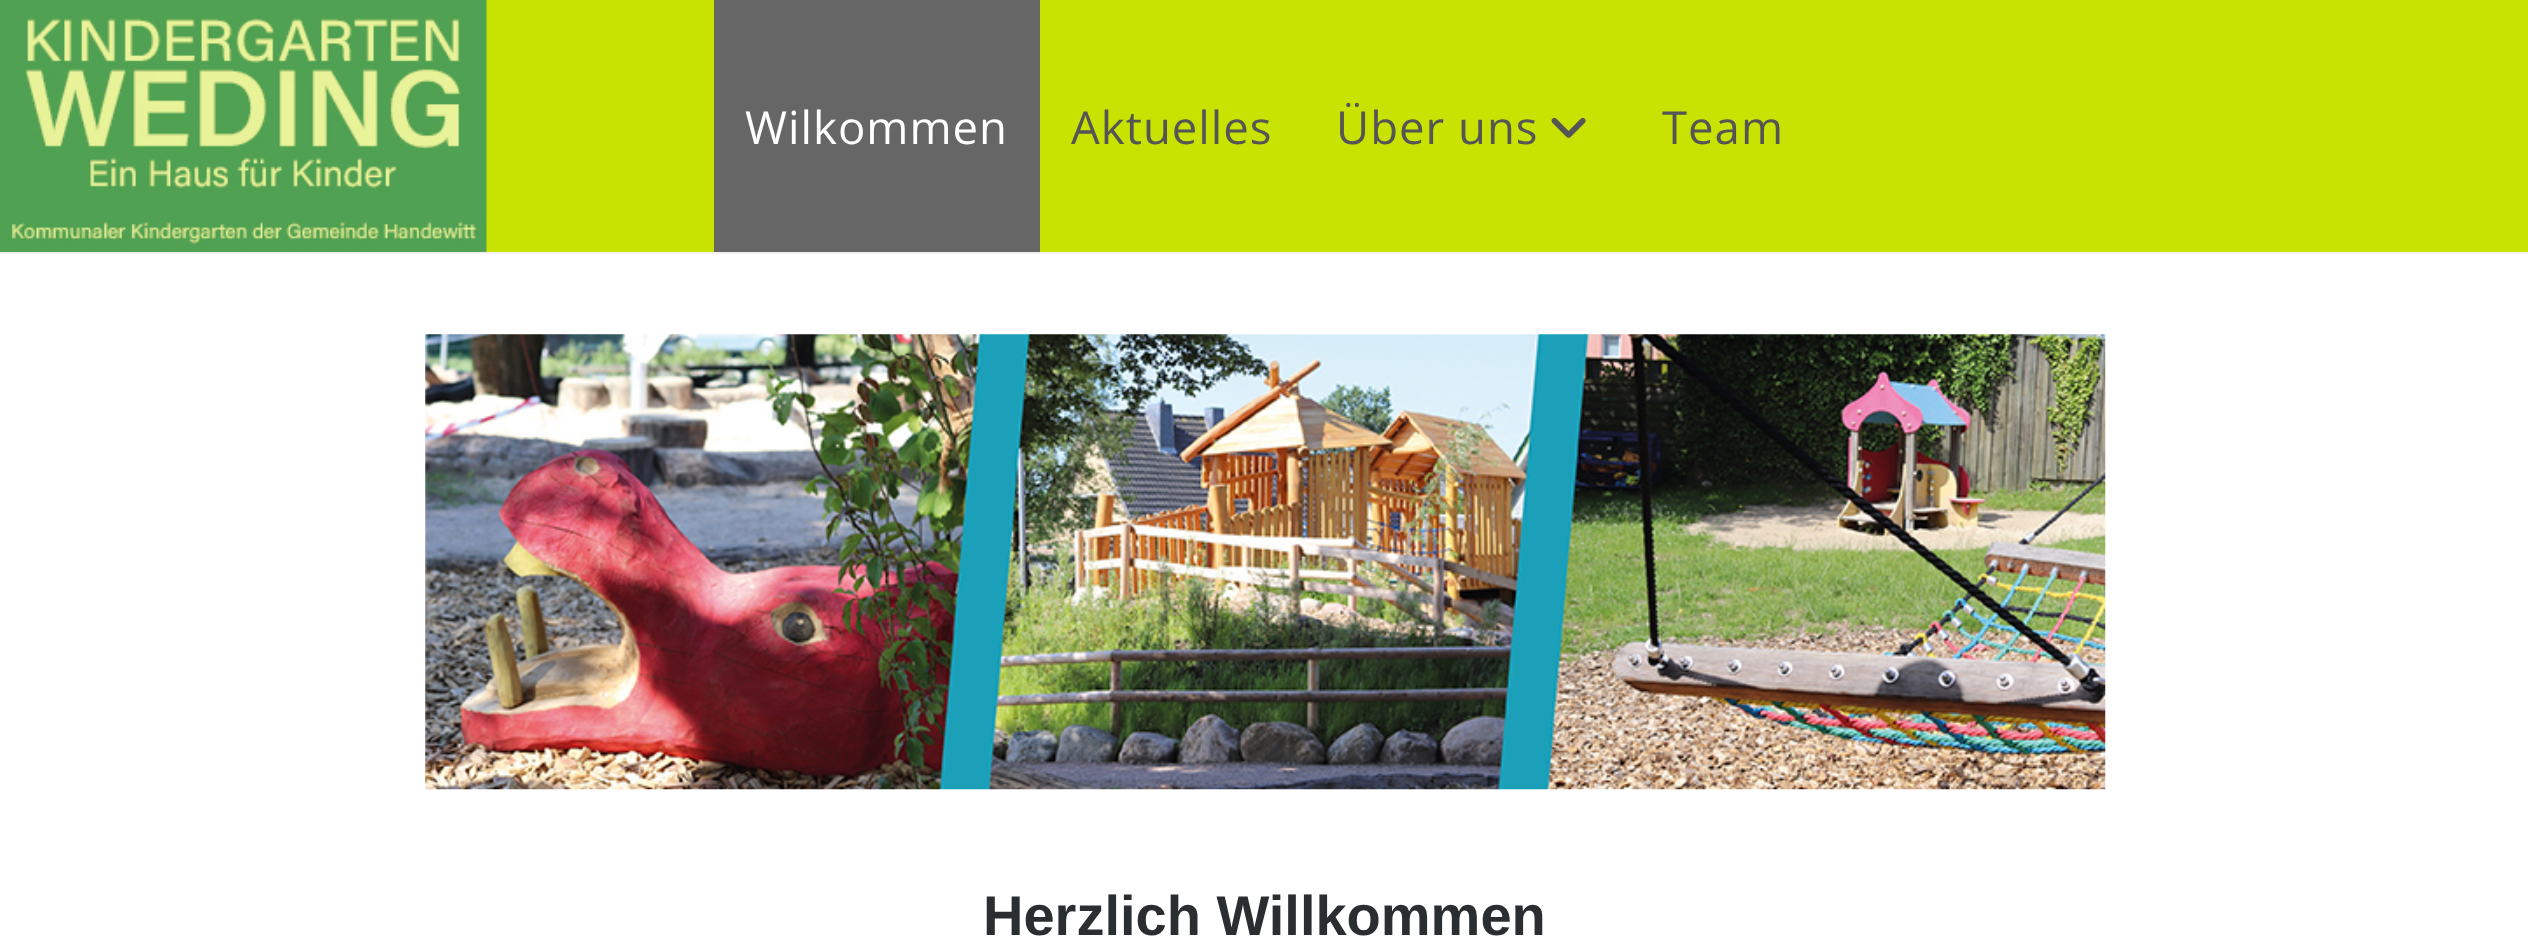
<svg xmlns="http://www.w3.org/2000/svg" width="2528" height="945">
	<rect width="100%" height="100%" fill="#FFFFFF" />
	<rect x="0" y="0" width="2528" height="252" fill="#C8E202" />
	<rect x="0" y="252" width="2528" height="2" fill="#F1F1F1" />
	<image x="0" y="0" width="487" height="252" href="assets/img1.png" />
	<rect x="714" y="0" width="326" height="252" fill="#666666" />
	<text x="745" y="144" font-family="Open Sans" font-size="45.5" letter-spacing="1" fill="#FFFFFF">Wilkommen</text>
	<g font-family="Open Sans" font-size="45.5" letter-spacing="1" fill="#555555">
		<text x="1071" y="144">Aktuelles</text>
		<text x="1336" y="144">Über uns</text>
	</g>
	<image x="1551" y="117" width="35" height="21" href="assets/img2.png" />
	<text x="1662" y="144" font-family="Open Sans" font-size="45.5" letter-spacing="1" fill="#555555">Team</text>
	<image x="425" y="334" width="1681" height="456" href="assets/img3.png" />
	<text x="983" y="935" font-family="Liberation Sans" font-size="56" font-weight="700" fill="#2A2E30">Herzlich Willkommen</text>
</svg>
